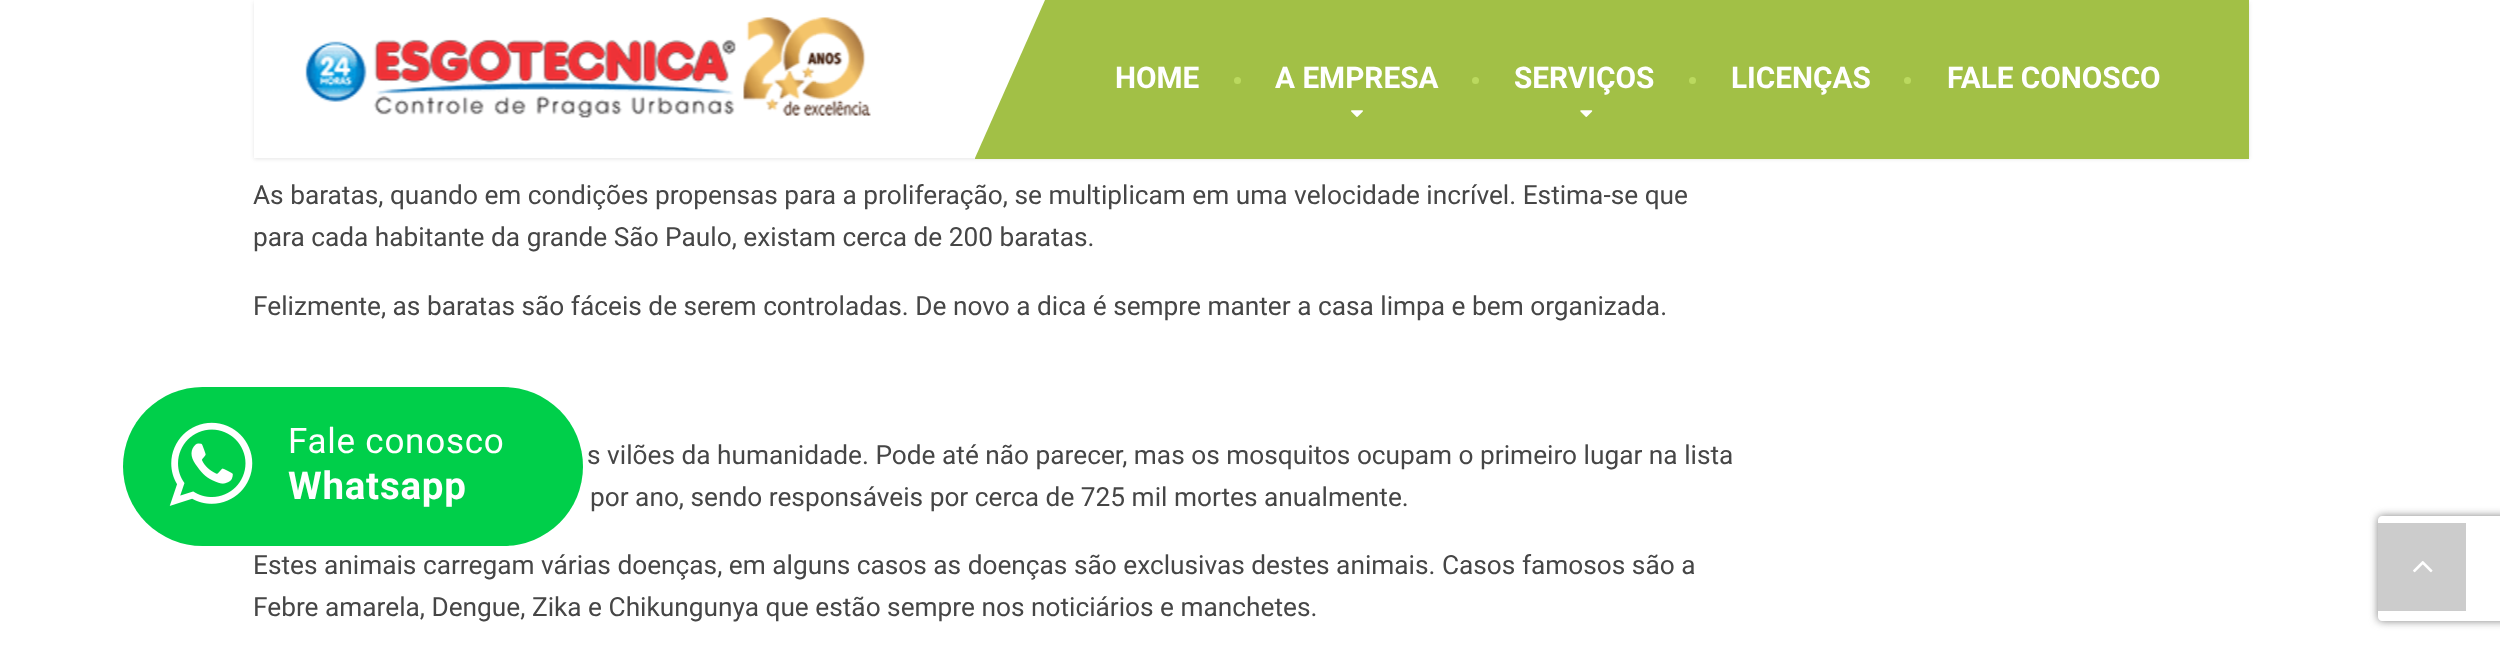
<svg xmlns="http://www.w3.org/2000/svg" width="2500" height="645">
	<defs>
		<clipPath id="clip1"><path d="M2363 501H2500V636H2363ZM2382 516H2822C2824 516 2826 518 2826 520V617C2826 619 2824 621 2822 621H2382C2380 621 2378 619 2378 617V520C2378 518 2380 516 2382 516Z" clip-rule="evenodd" /></clipPath>
	</defs>
	<rect width="100%" height="100%" fill="#FFFFFF" />
	<rect x="254" y="2" width="1995" height="157" fill="#000000" fill-opacity="0.1" filter="blur(2px)" />
	<rect x="254" y="0" width="721" height="158" fill="#FFFFFF" />
	<image x="305" y="39" width="431" height="79" href="assets/img1.png" />
	<image x="743" y="17" width="128" height="99" href="assets/img2.png" />
	<rect x="975" y="0" width="1274" height="159" fill="#A2C046" />
	<path d="M975 158V0H1045Z" fill="#FFFFFF" />
	<text x="1115" y="88" font-family="Roboto" font-size="29.75" font-weight="700" fill="#FFFFFF">HOME</text>
	<circle cx="1237.5" cy="80.5" r="3.5" fill="#BBD95F" />
	<text x="1275" y="88" font-family="Roboto" font-size="29.75" font-weight="700" fill="#FFFFFF">A EMPRESA</text>
	<image x="1351" y="110" width="12" height="7" href="assets/img3.png" />
	<circle cx="1475.5" cy="80.5" r="3.5" fill="#BBD95F" />
	<text x="1514" y="88" font-family="Roboto" font-size="29.75" font-weight="700" fill="#FFFFFF">SERVIÇOS</text>
	<image x="1580" y="110" width="13" height="7" href="assets/img4.png" />
	<circle cx="1692.5" cy="80.5" r="3.5" fill="#BBD95F" />
	<text x="1731" y="88" font-family="Roboto" font-size="29.75" font-weight="700" fill="#FFFFFF">LICENÇAS</text>
	<circle cx="1907.5" cy="80.5" r="3.5" fill="#BBD95F" />
	<text x="1947" y="88" font-family="Roboto" font-size="29.75" font-weight="700" fill="#FFFFFF">FALE CONOSCO</text>
	<g font-family="Roboto" font-size="26.25" fill="#464646">
		<text x="253" y="204">As baratas, quando em condições propensas para a proliferação, se multiplicam em uma velocidade incrível. Estima-se que</text>
		<text x="253" y="246">para cada habitante da grande São Paulo, existam cerca de 200 baratas.</text>
		<text x="253" y="315">Felizmente, as baratas são fáceis de serem controladas. De novo a dica é sempre manter a casa limpa e bem organizada.</text>
		<text x="587" y="464">s vilões da humanidade. Pode até não parecer, mas os mosquitos ocupam o primeiro lugar na lista</text>
		<text x="590" y="506">por ano, sendo responsáveis por cerca de 725 mil mortes anualmente.</text>
		<text x="253" y="574">Estes animais carregam várias doenças, em alguns casos as doenças são exclusivas destes animais. Casos famosos são a</text>
		<text x="253" y="616">Febre amarela, Dengue, Zika e Chikungunya que estão sempre nos noticiários e manchetes.</text>
	</g>
	<rect x="2378" y="523" width="88" height="88" fill="#CCCCCC" />
	<image x="2413" y="561" width="20" height="12" href="assets/img5.png" />
	<rect x="123" y="387" width="460" height="159" rx="79.5" fill="#00CF4A" />
	<image x="169" y="422" width="84" height="84" href="assets/img6.png" />
	<text x="288" y="453" font-family="Roboto" font-size="35" letter-spacing="0.75" fill="#FFFFFF">Fale conosco</text>
	<text x="288" y="499" font-family="Roboto" font-size="38.5" font-weight="700" letter-spacing="0.75" fill="#FFFFFF">Whatsapp</text>
	<g clip-path="url(#clip1)">
		<rect x="2378" y="516" width="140" height="105" rx="4" fill="#808080" filter="blur(4.5px)" />
	</g>
</svg>
